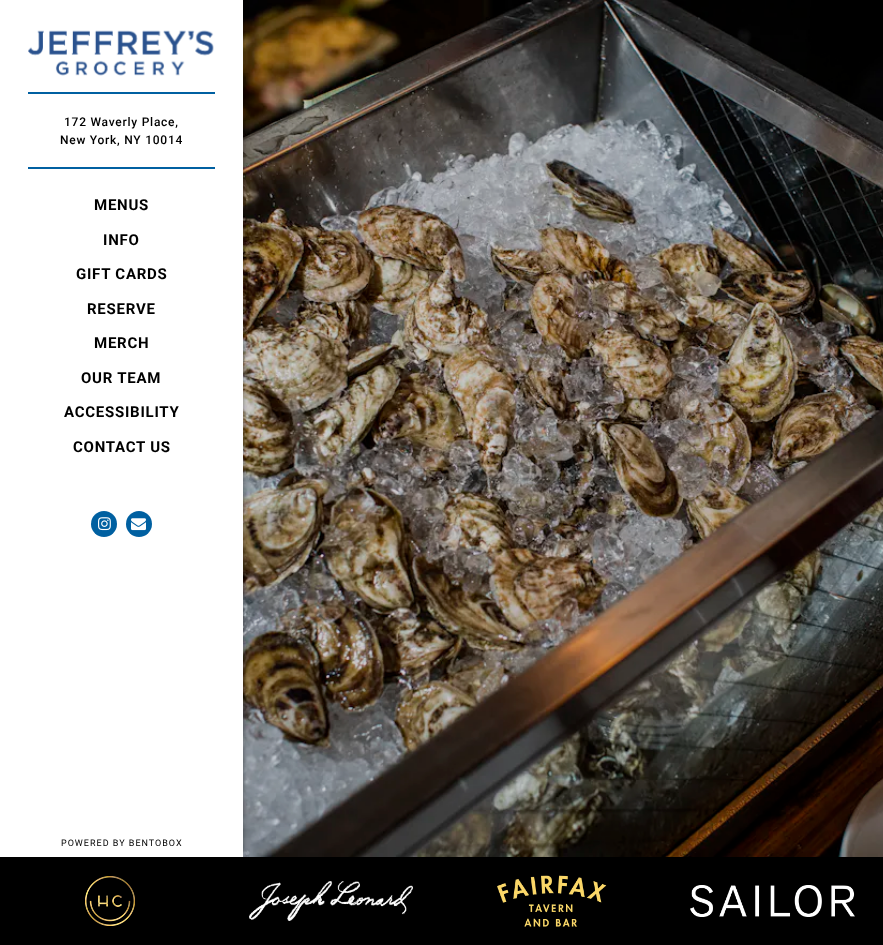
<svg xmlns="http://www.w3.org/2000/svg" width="883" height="945">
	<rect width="100%" height="100%" fill="#FFFFFF" />
	<image x="243" y="0" width="640" height="857" href="assets/img4.png" />
	<rect x="0" y="2" width="243" height="865" fill="#000000" fill-opacity="0.4" filter="blur(2.5px)" />
	<rect x="0" y="0" width="243" height="857" fill="#FFFFFF" />
	<image x="28" y="30" width="186" height="46" href="assets/img1.png" />
	<rect x="28" y="92" width="187" height="2" fill="#0060A1" />
	<rect x="28" y="167" width="187" height="2" fill="#0060A1" />
	<g font-family="Roboto" font-size="12" font-weight="500" letter-spacing="0.75" fill="#000000">
		<text x="64" y="126">172 Waverly Place,</text>
		<text x="60" y="144">New York, NY 10014</text>
	</g>
	<g font-family="Roboto" font-size="15" font-weight="700" letter-spacing="0.75" fill="#000000">
		<text x="94" y="210">MENUS</text>
		<text x="103" y="245">INFO</text>
		<text x="76" y="279">GIFT CARDS</text>
		<text x="87" y="314">RESERVE</text>
		<text x="94" y="348">MERCH</text>
		<text x="81" y="383">OUR TEAM</text>
		<text x="64" y="417">ACCESSIBILITY</text>
		<text x="73" y="452">CONTACT US</text>
	</g>
	<circle cx="104" cy="524" r="13" fill="#0060A1" />
	<image x="98" y="517" width="13" height="14" href="assets/img2.png" />
	<circle cx="139" cy="524" r="13" fill="#0060A1" />
	<image x="131" y="518" width="15" height="13" href="assets/img3.png" />
	<text x="61" y="846" font-family="Roboto" font-size="9" letter-spacing="1" fill="#000000">POWERED BY BENTOBOX</text>
	<rect x="0" y="857" width="883" height="88" fill="#000000" />
	<image x="85" y="876" width="50" height="50" href="assets/img5.png" />
	<image x="249" y="881" width="164" height="40" href="assets/img6.png" />
	<image x="497" y="875" width="110" height="52" href="assets/img7.png" />
	<image x="690" y="885" width="165" height="32" href="assets/img8.png" />
</svg>
